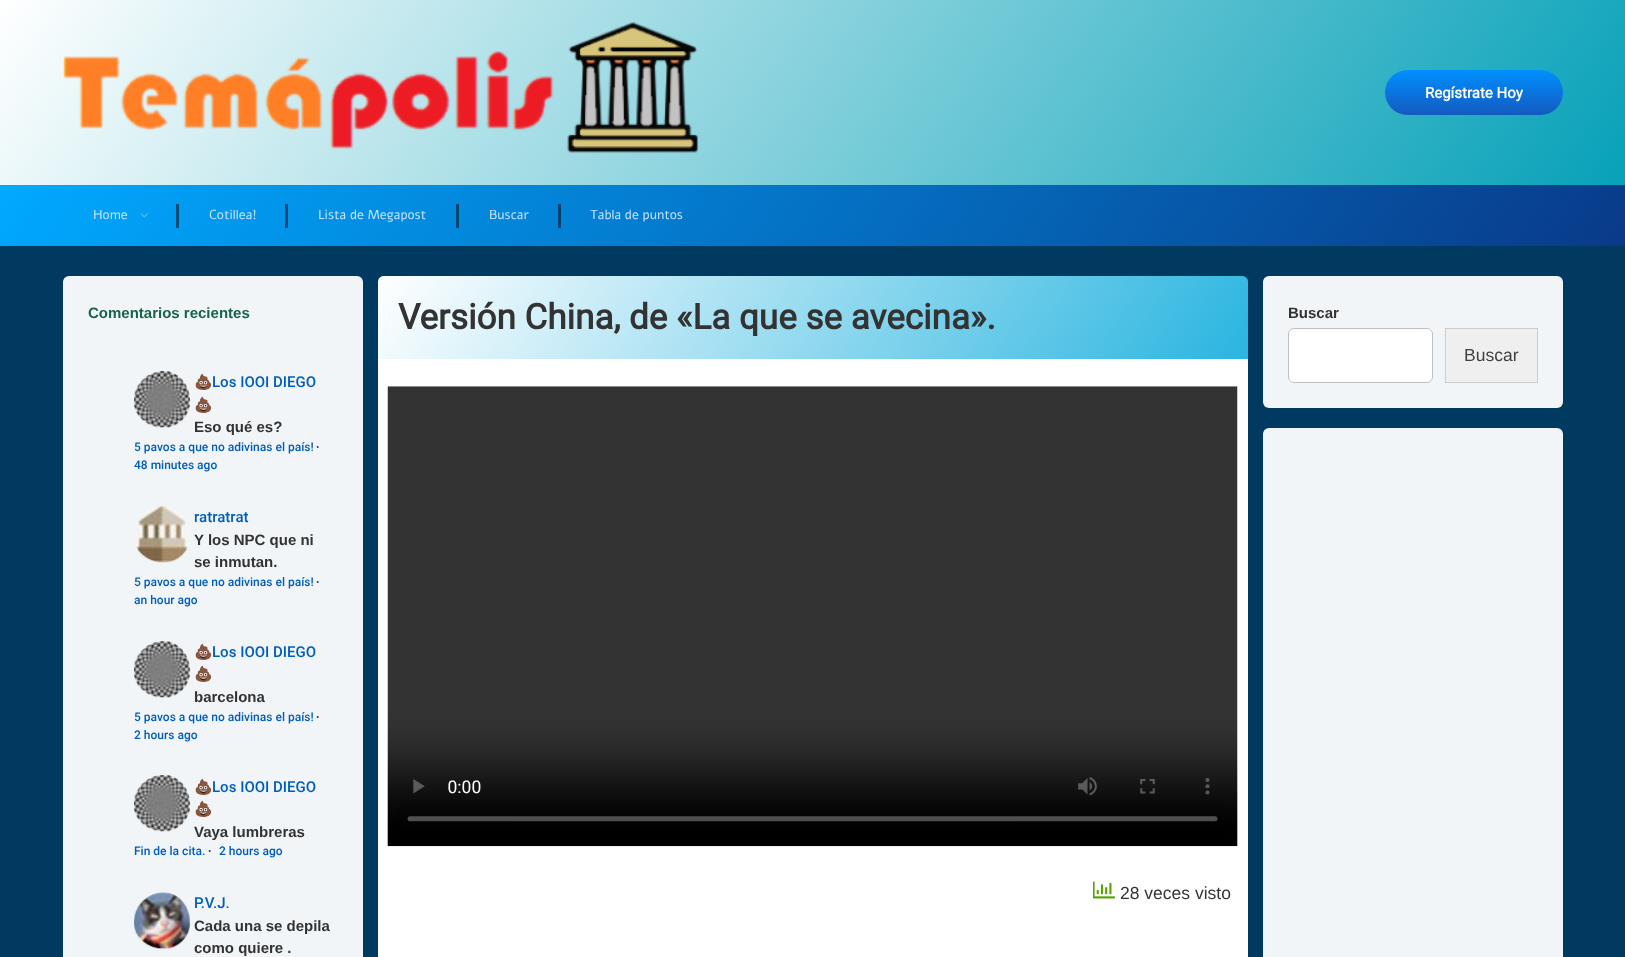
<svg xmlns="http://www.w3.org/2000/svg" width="1625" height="957">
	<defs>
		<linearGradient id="g1" gradientUnits="userSpaceOnUse" x1="209" y1="-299" x2="1416" y2="545"><stop offset="0" stop-color="#FFFFFF" /><stop offset="1" stop-color="#019FB7" /></linearGradient>
		<linearGradient id="g2" gradientUnits="userSpaceOnUse" x1="1474" y1="115" x2="1474" y2="70"><stop offset="0" stop-color="#135ABF" /><stop offset="1" stop-color="#0090FF" /></linearGradient>
		<linearGradient id="g3" gradientUnits="userSpaceOnUse" x1="253" y1="-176" x2="1372" y2="607"><stop offset="0" stop-color="#00A9FF" /><stop offset="1" stop-color="#093A89" /></linearGradient>
		<linearGradient id="g4" gradientUnits="userSpaceOnUse" x1="501" y1="100" x2="1124" y2="535"><stop offset="0" stop-color="#FFFFFF" /><stop offset="1" stop-color="#2AB5E0" /></linearGradient>
	</defs>
	<rect width="100%" height="100%" fill="#003A60" />
	<rect x="0" y="0" width="1625" height="185" fill="url(#g1)" />
	<image x="63" y="22" width="635" height="131" href="assets/img1.png" />
	<rect x="1385" y="70" width="178" height="45" rx="22.5" fill="url(#g2)" />
	<text x="1425" y="98" font-family="Roboto" font-size="15" font-weight="700" fill="#FFFFFF">Regístrate Hoy</text>
	<rect x="0" y="185" width="1625" height="61" fill="url(#g3)" />
	<text x="93" y="219" font-family="Alef" font-size="13" fill="#C5E2FF">Home</text>
	<image x="140" y="213" width="8" height="5" href="assets/img2.png" />
	<rect x="176" y="204" width="3" height="24" fill="#014E78" />
	<text x="209" y="219" font-family="Alef" font-size="13" fill="#C5E2FF">Cotillea!</text>
	<rect x="285" y="204" width="3" height="24" fill="#014A75" />
	<text x="318" y="219" font-family="Alef" font-size="13" fill="#C5E2FF">Lista de Megapost</text>
	<rect x="456" y="204" width="3" height="24" fill="#02456F" />
	<text x="489" y="219" font-family="Alef" font-size="13" fill="#C5E2FF">Buscar</text>
	<rect x="558" y="204" width="3" height="24" fill="#02416B" />
	<text x="590" y="219" font-family="Alef" font-size="13" fill="#C5E2FF">Tabla de puntos</text>
	<rect x="63" y="276" width="300" height="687" rx="6" fill="#F2F5F7" />
	<text x="88" y="318" font-family="Liberation Sans" font-size="15" font-weight="700" fill="#176448">Comentarios recientes</text>
	<image x="134" y="371" width="57" height="57" href="assets/img3.png" />
	<text x="194" y="387" font-family="Noto Color Emoji" font-size="15" font-weight="700" fill="#005EBB">💩</text>
	<text x="212" y="387" font-family="Roboto" font-size="15" font-weight="500" fill="#005EBB">Los IOOI DIEGO</text>
	<text x="194" y="410" font-family="Noto Color Emoji" font-size="15" font-weight="700" fill="#005EBB">💩</text>
	<text x="194" y="432" font-family="Liberation Sans" font-size="15" font-weight="700" fill="#333333">Eso qué es?</text>
	<text x="134" y="451" font-family="Roboto" font-size="12" font-weight="500" fill="#005EBB">5 pavos a que no adivinas el país!</text>
	<text x="316" y="451" font-family="Liberation Sans" font-size="12" font-weight="700" fill="#333333">·</text>
	<text x="134" y="469" font-family="Roboto" font-size="12" font-weight="500" fill="#005EBB">48 minutes ago</text>
	<image x="134" y="506" width="56" height="57" href="assets/img4.png" />
	<text x="194" y="522" font-family="Roboto" font-size="15" font-weight="500" fill="#005EBB">ratratrat</text>
	<g font-family="Liberation Sans" font-size="15" font-weight="700" fill="#333333">
		<text x="194" y="545">Y los NPC que ni</text>
		<text x="194" y="567">se inmutan.</text>
	</g>
	<text x="134" y="586" font-family="Roboto" font-size="12" font-weight="500" fill="#005EBB">5 pavos a que no adivinas el país!</text>
	<text x="316" y="586" font-family="Liberation Sans" font-size="12" font-weight="700" fill="#333333">·</text>
	<text x="134" y="604" font-family="Roboto" font-size="12" font-weight="500" fill="#005EBB">an hour ago</text>
	<image x="134" y="641" width="57" height="57" href="assets/img5.png" />
	<text x="194" y="657" font-family="Noto Color Emoji" font-size="15" font-weight="700" fill="#005EBB">💩</text>
	<text x="212" y="657" font-family="Roboto" font-size="15" font-weight="500" fill="#005EBB">Los IOOI DIEGO</text>
	<text x="194" y="679" font-family="Noto Color Emoji" font-size="15" font-weight="700" fill="#005EBB">💩</text>
	<text x="194" y="702" font-family="Liberation Sans" font-size="15" font-weight="700" fill="#333333">barcelona</text>
	<text x="134" y="721" font-family="Roboto" font-size="12" font-weight="500" fill="#005EBB">5 pavos a que no adivinas el país!</text>
	<text x="316" y="721" font-family="Liberation Sans" font-size="12" font-weight="700" fill="#333333">·</text>
	<text x="134" y="739" font-family="Roboto" font-size="12" font-weight="500" fill="#005EBB">2 hours ago</text>
	<image x="134" y="774" width="57" height="58" href="assets/img6.png" />
	<text x="194" y="792" font-family="Noto Color Emoji" font-size="15" font-weight="700" fill="#005EBB">💩</text>
	<text x="212" y="792" font-family="Roboto" font-size="15" font-weight="500" fill="#005EBB">Los IOOI DIEGO</text>
	<text x="194" y="814" font-family="Noto Color Emoji" font-size="15" font-weight="700" fill="#005EBB">💩</text>
	<text x="194" y="837" font-family="Liberation Sans" font-size="15" font-weight="700" fill="#333333">Vaya lumbreras</text>
	<text x="134" y="855" font-family="Roboto" font-size="12" font-weight="500" fill="#005EBB">Fin de la cita.</text>
	<text x="208" y="855" font-family="Liberation Sans" font-size="12" font-weight="700" fill="#333333">·</text>
	<text x="219" y="855" font-family="Roboto" font-size="12" font-weight="500" fill="#005EBB">2 hours ago</text>
	<image x="134" y="892" width="57" height="58" href="assets/img7.png" />
	<text x="194" y="908" font-family="Roboto" font-size="15" font-weight="500" fill="#005EBB">P.V.J.</text>
	<g font-family="Liberation Sans" font-size="15" font-weight="700" fill="#333333">
		<text x="194" y="931">Cada una se depila</text>
		<text x="194" y="953">como quiere .</text>
	</g>
	<path d="M391 276H1235C1242 276 1248 282 1248 289V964C1248 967.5 1245.5 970 1242 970H384C380.5 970 378 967.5 378 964V289C378 282 384 276 391 276Z" fill="#FFFFFF" />
	<path d="M384 276H1242C1245.5 276 1248 278.5 1248 282V359H378V282C378 278.5 380.5 276 384 276Z" fill="url(#g4)" />
	<text x="398" y="329" font-family="Roboto" font-size="35" font-weight="700" fill="#333333">Versión China, de «La que se avecina».</text>
	<image x="387" y="386" width="851" height="461" href="assets/img8.png" />
	<image x="1093" y="881" width="22" height="18" href="assets/img9.png" />
	<text x="1120" y="899" font-family="Liberation Sans" font-size="17.5" fill="#333333">28 veces visto</text>
	<rect x="1263" y="276" width="300" height="132" rx="6" fill="#F2F5F7" />
	<text x="1288" y="318" font-family="Liberation Sans" font-size="15" font-weight="700" fill="#333333">Buscar</text>
	<rect x="1288" y="328" width="145" height="55" rx="6" fill="#FFFFFF" />
	<rect x="1288.5" y="328.5" width="144" height="54" rx="5.5" fill="none" stroke="#000000" stroke-opacity="0.25" />
	<rect x="1445.5" y="328.5" width="92" height="54" fill="#EFEFEF" stroke="#CCCCCC" />
	<text x="1464" y="361" font-family="Liberation Sans" font-size="17.5" fill="#404040">Buscar</text>
	<rect x="1263" y="428" width="300" height="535" rx="6" fill="#F2F5F7" />
</svg>
